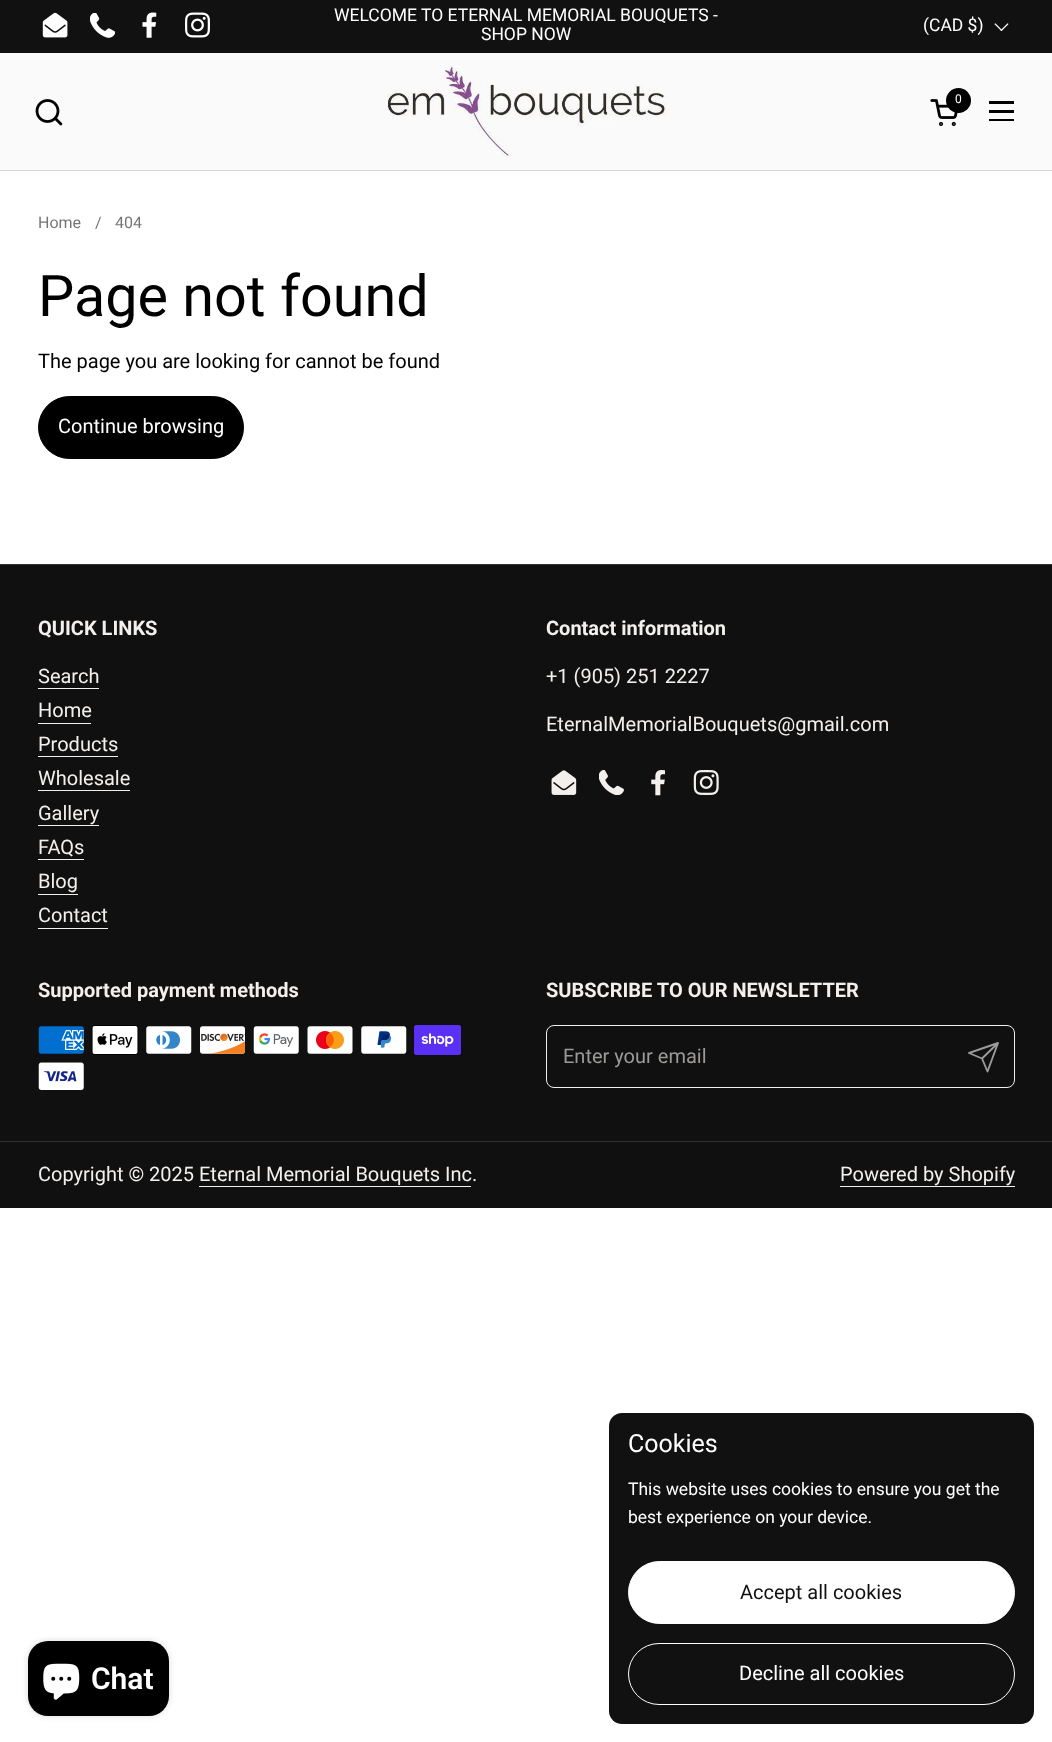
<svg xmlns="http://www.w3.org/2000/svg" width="1052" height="1742">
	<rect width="100%" height="100%" fill="#FFFFFF" />
	<rect x="0" y="0" width="1052" height="53" fill="#111111" />
	<image x="42" y="12" width="26" height="26" href="assets/img1.png" />
	<image x="90" y="13" width="25" height="25" href="assets/img2.png" />
	<image x="142" y="12" width="15" height="26" href="assets/img3.png" />
	<image x="185" y="12" width="25" height="26" href="assets/img4.png" />
	<g font-family="Roboto" font-size="17.5" fill="#FFFFFF">
		<text x="334" y="21">WELCOME TO ETERNAL MEMORIAL BOUQUETS -</text>
		<text x="481" y="40">SHOP NOW</text>
		<text x="923" y="31">(CAD $)</text>
	</g>
	<image x="994" y="23" width="15" height="8" href="assets/img5.png" />
	<rect x="0" y="53" width="1052" height="117" fill="#FAFAFA" />
	<image x="35" y="99" width="28" height="27" href="assets/img6.png" />
	<image x="387" y="65" width="280" height="93" href="assets/img7.png" />
	<circle cx="958.5" cy="100.5" r="12.5" fill="#000000" />
	<text x="955" y="103" font-family="Roboto" font-size="12" fill="#FFFFFF">0</text>
	<image x="930" y="99" width="28" height="28" href="assets/img8.png" />
	<rect x="989" y="101" width="25" height="3" fill="#000000" />
	<rect x="989" y="110" width="25" height="3" fill="#000000" />
	<rect x="989" y="119" width="25" height="2" fill="#000000" />
	<rect x="0" y="170" width="1052" height="1" fill="#D5D5D5" />
	<g font-family="Roboto" font-size="16" fill="#757575">
		<text x="38" y="228">Home</text>
		<text x="95" y="228">/</text>
		<text x="115" y="228">404</text>
	</g>
	<text x="38" y="316" font-family="Roboto" font-size="57.5" fill="#000000">Page not found</text>
	<text x="38" y="368" font-family="Roboto" font-size="20" fill="#000000">The page you are looking for cannot be found</text>
	<rect x="38.5" y="396.5" width="205" height="62" rx="31" fill="#000000" stroke="#000000" />
	<text x="58" y="433" font-family="Roboto" font-size="20" fill="#FFFFFF">Continue browsing</text>
	<rect x="0" y="565" width="1052" height="643" fill="#101010" />
	<rect x="0" y="564" width="1052" height="1" fill="#323131" />
	<text x="38" y="635" font-family="Roboto" font-size="20" font-weight="700" fill="#F2EFEC">QUICK LINKS</text>
	<text x="38" y="683" font-family="Roboto" font-size="20" fill="#F2EFEC">Search</text>
	<rect x="38" y="688" width="61" height="1" fill="#F2EFEC" />
	<text x="38" y="717" font-family="Roboto" font-size="20" fill="#F2EFEC">Home</text>
	<rect x="38" y="723" width="53" height="1" fill="#F2EFEC" />
	<text x="38" y="751" font-family="Roboto" font-size="20" fill="#F2EFEC">Products</text>
	<rect x="38" y="756" width="80" height="1" fill="#F2EFEC" />
	<text x="38" y="785" font-family="Roboto" font-size="20" fill="#F2EFEC">Wholesale</text>
	<rect x="38" y="790" width="92" height="1" fill="#F2EFEC" />
	<text x="38" y="820" font-family="Roboto" font-size="20" fill="#F2EFEC">Gallery</text>
	<rect x="38" y="825" width="61" height="1" fill="#F2EFEC" />
	<text x="38" y="854" font-family="Roboto" font-size="20" fill="#F2EFEC">FAQs</text>
	<rect x="38" y="859" width="46" height="1" fill="#F2EFEC" />
	<text x="38" y="888" font-family="Roboto" font-size="20" fill="#F2EFEC">Blog</text>
	<rect x="38" y="894" width="40" height="1" fill="#F2EFEC" />
	<text x="38" y="922" font-family="Roboto" font-size="20" fill="#F2EFEC">Contact</text>
	<rect x="38" y="928" width="70" height="1" fill="#F2EFEC" />
	<text x="546" y="635" font-family="Roboto" font-size="20" font-weight="700" fill="#F2EFEC">Contact information</text>
	<g font-family="Roboto" font-size="20" fill="#F2EFEC">
		<text x="546" y="683">+1 (905) 251 2227</text>
		<text x="546" y="731">EternalMemorialBouquets@gmail.com</text>
	</g>
	<image x="551" y="770" width="26" height="25" href="assets/img9.png" />
	<image x="599" y="770" width="25" height="25" href="assets/img10.png" />
	<image x="651" y="770" width="14" height="26" href="assets/img11.png" />
	<image x="693" y="770" width="26" height="25" href="assets/img12.png" />
	<text x="38" y="997" font-family="Roboto" font-size="20" font-weight="700" fill="#F2EFEC">Supported payment methods</text>
	<image x="38" y="1026" width="46" height="28" href="assets/img13.png" />
	<image x="91" y="1025" width="48" height="30" href="assets/img14.png" />
	<image x="146" y="1026" width="46" height="28" href="assets/img15.png" />
	<image x="200" y="1026" width="46" height="28" href="assets/img16.png" />
	<image x="253" y="1026" width="46" height="28" href="assets/img17.png" />
	<image x="307" y="1026" width="46" height="28" href="assets/img18.png" />
	<image x="361" y="1026" width="46" height="28" href="assets/img19.png" />
	<image x="414" y="1025" width="47" height="30" href="assets/img20.png" />
	<image x="38" y="1062" width="46" height="28" href="assets/img21.png" />
	<text x="546" y="997" font-family="Roboto" font-size="20" font-weight="700" fill="#F2EFEC">SUBSCRIBE TO OUR NEWSLETTER</text>
	<rect x="546.5" y="1025.5" width="468" height="62" rx="7.5" fill="none" stroke="#F2EFEC" />
	<text x="563" y="1063" font-family="Roboto" font-size="20" fill="#9C9A98">Enter your email</text>
	<path d="M998 1043L982 1058.5M998 1043L987.5 1071.5L982 1058.5L969 1053Z" fill="none" stroke="#9C9A98" stroke-width="1.9" stroke-linecap="round" stroke-linejoin="round" />
	<rect x="0" y="1141" width="1052" height="1" fill="#323131" />
	<text x="38" y="1181" font-family="Roboto" font-size="20" fill="#F2EFEC">Copyright © 2025 Eternal Memorial Bouquets Inc.</text>
	<rect x="199" y="1186" width="272" height="1" fill="#F2EFEC" />
	<text x="840" y="1181" font-family="Roboto" font-size="20" fill="#F2EFEC">Powered by Shopify</text>
	<rect x="840" y="1186" width="175" height="1" fill="#F2EFEC" />
	<rect x="28" y="1641" width="141" height="75" rx="20" fill="#000000" fill-opacity="0.15" filter="blur(3px)" />
	<rect x="28" y="1641" width="141" height="75" rx="20" fill="#000000" />
	<image x="43" y="1663" width="37" height="37" href="assets/img22.png" />
	<text x="91" y="1689" font-family="Roboto" font-size="30" font-weight="600" fill="#FFFFFF">Chat</text>
	<rect x="609" y="1413" width="425" height="311" rx="13" fill="#111111" />
	<text x="628" y="1452" font-family="Roboto" font-size="25" fill="#FFFFFF">Cookies</text>
	<g font-family="Roboto" font-size="17.5" fill="#FFFFFF">
		<text x="628" y="1495">This website uses cookies to ensure you get the</text>
		<text x="628" y="1523">best experience on your device.</text>
	</g>
	<rect x="628.5" y="1561.5" width="386" height="62" rx="31" fill="#FFFFFF" stroke="#FFFFFF" />
	<text x="740" y="1599" font-family="Roboto" font-size="20" fill="#111111">Accept all cookies</text>
	<rect x="628.5" y="1643.5" width="386" height="61" rx="30.5" fill="none" stroke="#FFFFFF" />
	<text x="739" y="1680" font-family="Roboto" font-size="20" fill="#FFFFFF">Decline all cookies</text>
</svg>
